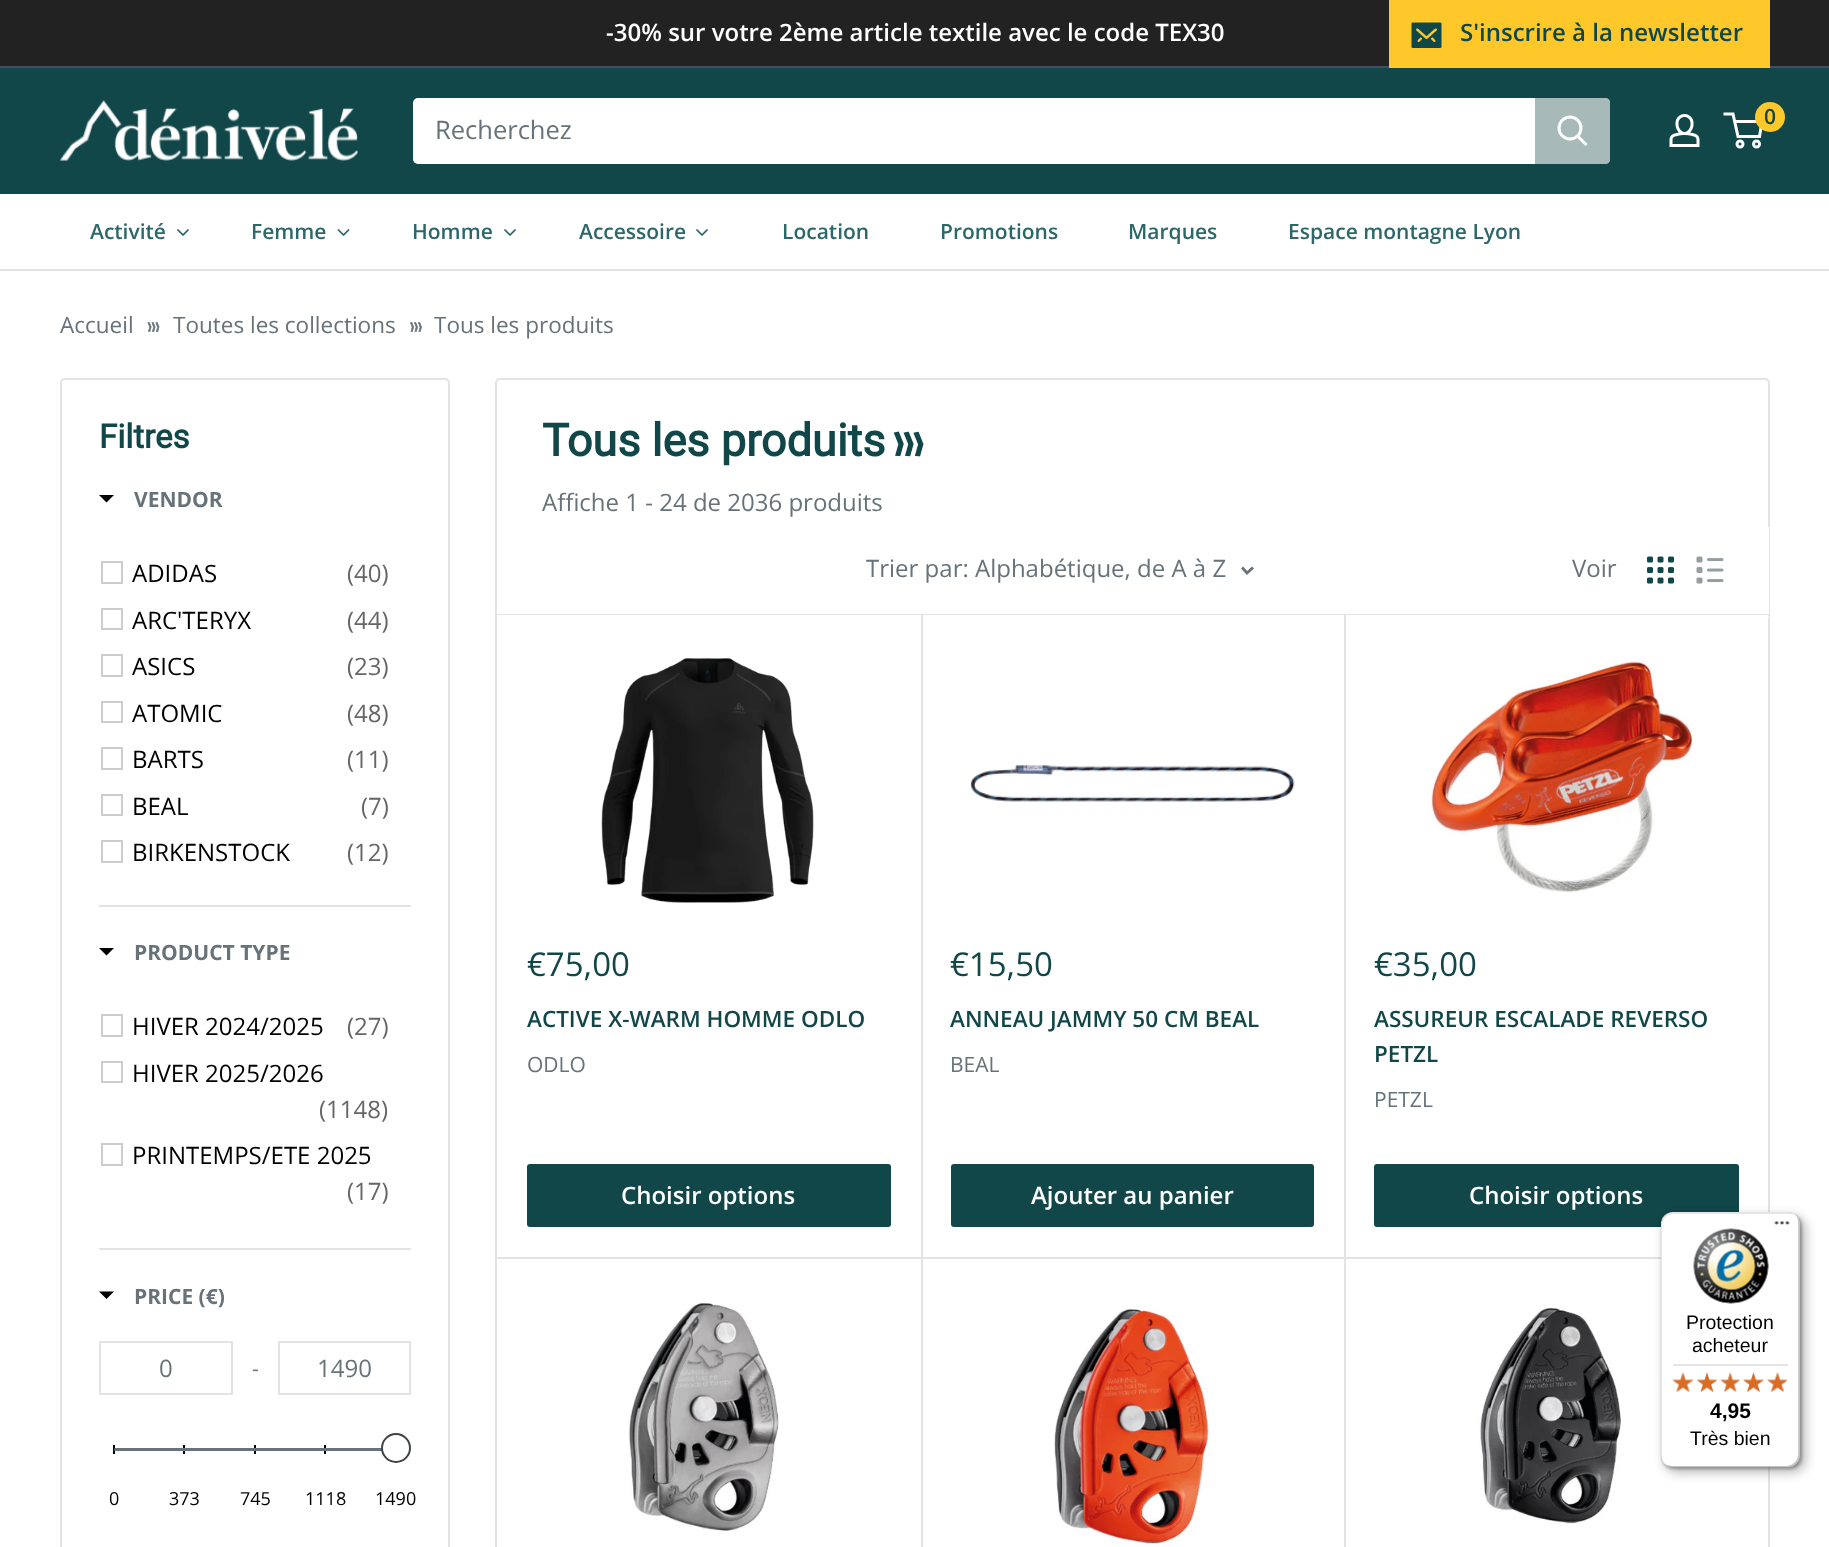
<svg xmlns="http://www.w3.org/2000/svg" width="1829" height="1547">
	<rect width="100%" height="100%" fill="#FFFFFF" />
	<rect x="0" y="0" width="1829" height="66" fill="#222222" />
	<rect x="0" y="66" width="1829" height="2" fill="#494C60" />
	<text x="606" y="41" font-family="Open Sans" font-size="24" font-weight="600" fill="#FFFFFF">-30% sur votre 2ème article textile avec le code TEX30</text>
	<rect x="1389" y="0" width="381" height="68" fill="#FEC82B" />
	<image x="1411" y="22" width="31" height="26" href="assets/img1.png" />
	<text x="1460" y="41" font-family="Open Sans" font-size="24" font-weight="600" fill="#114749">S'inscrire à la newsletter</text>
	<rect x="0" y="68" width="1829" height="126" fill="#114749" />
	<image x="60" y="100" width="298" height="61" href="assets/img2.png" />
	<image x="1669" y="114" width="31" height="33" href="assets/img3.png" />
	<circle cx="1740" cy="144" r="3" fill="none" stroke="#FFFFFF" stroke-width="3" />
	<circle cx="1756.5" cy="144" r="3" fill="none" stroke="#FFFFFF" stroke-width="3" />
	<path d="M1734.5 121.5H1762L1759.5 136.5H1738L1733 114H1723.5" fill="none" stroke="#FFFFFF" stroke-width="3" />
	<circle cx="1770" cy="117" r="15" fill="#FEC82B" />
	<text x="1764" y="124" font-family="Open Sans" font-size="21" font-weight="600" fill="#114749">0</text>
	<rect x="413" y="98" width="1197" height="66" rx="5" fill="#FFFFFF" />
	<text x="435" y="139" font-family="Open Sans" font-size="25.5" fill="#677279">Recherchez</text>
	<path d="M1535 98H1605C1608 98 1610 100 1610 103V159C1610 162 1608 164 1605 164H1535Z" fill="#A8BAB8" />
	<path d="M1585.5 144L1578 136.5" fill="none" stroke="#FFFFFF" stroke-width="3" stroke-linecap="square" />
	<circle cx="1570" cy="128" r="11" fill="none" stroke="#FFFFFF" stroke-width="3" />
	<rect x="0" y="269" width="1829" height="2" fill="#E1E3E4" />
	<text x="90" y="239" font-family="Open Sans" font-size="21" font-weight="600" fill="#2C6769">Activité</text>
	<image x="177" y="229" width="12" height="7" href="assets/img4.png" />
	<text x="251" y="239" font-family="Open Sans" font-size="21" font-weight="600" fill="#2C6769">Femme</text>
	<image x="337" y="229" width="13" height="7" href="assets/img5.png" />
	<text x="412" y="239" font-family="Open Sans" font-size="21" font-weight="600" fill="#2C6769">Homme</text>
	<image x="504" y="229" width="12" height="7" href="assets/img4.png" />
	<text x="579" y="239" font-family="Open Sans" font-size="21" font-weight="600" fill="#2C6769">Accessoire</text>
	<image x="696" y="229" width="12" height="7" href="assets/img4.png" />
	<g font-family="Open Sans" font-size="21" font-weight="600" fill="#2C6769">
		<text x="782" y="239">Location</text>
		<text x="940" y="239">Promotions</text>
		<text x="1128" y="239">Marques</text>
		<text x="1288" y="239">Espace montagne Lyon</text>
	</g>
	<text x="60" y="333" font-family="Open Sans" font-size="22.5" fill="#677279">Accueil</text>
	<image x="147" y="322" width="13" height="10" href="assets/img6.png" />
	<text x="173" y="333" font-family="Open Sans" font-size="22.5" fill="#677279">Toutes les collections</text>
	<image x="410" y="322" width="12" height="10" href="assets/img7.png" />
	<text x="434" y="333" font-family="Open Sans" font-size="22.5" fill="#677279">Tous les produits</text>
	<rect x="61" y="379" width="388" height="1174" rx="4" fill="none" stroke="#E1E3E4" stroke-width="2" />
	<text x="99" y="448" font-family="Roboto" font-size="33" font-weight="700" fill="#114749">Filtres</text>
	<path d="M99 495H114L106.5 502.5Z" fill="#000000" />
	<text x="134" y="507" font-family="Open Sans" font-size="21" font-weight="700" fill="#677279">VENDOR</text>
	<rect x="102" y="562" width="20" height="21" fill="none" stroke="#CCCCCC" stroke-width="2" />
	<text x="132" y="582" font-family="Open Sans" font-size="24" fill="#000000">ADIDAS</text>
	<text x="347" y="582" font-family="Open Sans" font-size="24" fill="#666666">(40)</text>
	<rect x="102" y="609" width="20" height="20" fill="none" stroke="#CCCCCC" stroke-width="2" />
	<text x="132" y="629" font-family="Open Sans" font-size="24" fill="#000000">ARC'TERYX</text>
	<text x="347" y="629" font-family="Open Sans" font-size="24" fill="#666666">(44)</text>
	<rect x="102" y="655" width="20" height="21" fill="none" stroke="#CCCCCC" stroke-width="2" />
	<text x="132" y="675" font-family="Open Sans" font-size="24" fill="#000000">ASICS</text>
	<text x="347" y="675" font-family="Open Sans" font-size="24" fill="#666666">(23)</text>
	<rect x="102" y="702" width="20" height="20" fill="none" stroke="#CCCCCC" stroke-width="2" />
	<text x="132" y="722" font-family="Open Sans" font-size="24" fill="#000000">ATOMIC</text>
	<text x="347" y="722" font-family="Open Sans" font-size="24" fill="#666666">(48)</text>
	<rect x="102" y="748" width="20" height="21" fill="none" stroke="#CCCCCC" stroke-width="2" />
	<text x="132" y="768" font-family="Open Sans" font-size="24" fill="#000000">BARTS</text>
	<text x="347" y="768" font-family="Open Sans" font-size="24" fill="#666666">(11)</text>
	<rect x="102" y="795" width="20" height="20" fill="none" stroke="#CCCCCC" stroke-width="2" />
	<text x="132" y="815" font-family="Open Sans" font-size="24" fill="#000000">BEAL</text>
	<text x="361" y="815" font-family="Open Sans" font-size="24" fill="#666666">(7)</text>
	<rect x="102" y="841" width="20" height="21" fill="none" stroke="#CCCCCC" stroke-width="2" />
	<text x="132" y="861" font-family="Open Sans" font-size="24" fill="#000000">BIRKENSTOCK</text>
	<text x="347" y="861" font-family="Open Sans" font-size="24" fill="#666666">(12)</text>
	<rect x="99" y="905" width="312" height="2" fill="#E3E3E3" />
	<path d="M99 948H114L106.5 955.5Z" fill="#000000" />
	<text x="134" y="960" font-family="Open Sans" font-size="21" font-weight="700" fill="#677279">PRODUCT TYPE</text>
	<rect x="102" y="1015" width="20" height="21" fill="none" stroke="#CCCCCC" stroke-width="2" />
	<text x="132" y="1035" font-family="Open Sans" font-size="24" fill="#000000">HIVER 2024/2025</text>
	<text x="347" y="1035" font-family="Open Sans" font-size="24" fill="#666666">(27)</text>
	<rect x="102" y="1062" width="20" height="20" fill="none" stroke="#CCCCCC" stroke-width="2" />
	<text x="132" y="1082" font-family="Open Sans" font-size="24" fill="#000000">HIVER 2025/2026</text>
	<text x="319" y="1118" font-family="Open Sans" font-size="24" fill="#666666">(1148)</text>
	<rect x="102" y="1144" width="20" height="21" fill="none" stroke="#CCCCCC" stroke-width="2" />
	<text x="132" y="1164" font-family="Open Sans" font-size="24" fill="#000000">PRINTEMPS/ETE 2025</text>
	<text x="347" y="1200" font-family="Open Sans" font-size="24" fill="#666666">(17)</text>
	<rect x="99" y="1248" width="312" height="2" fill="#E3E3E3" />
	<path d="M99 1291.5H114L106.5 1299Z" fill="#000000" />
	<text x="134" y="1304" font-family="Open Sans" font-size="21" font-weight="700" fill="#677279">PRICE (€)</text>
	<rect x="100" y="1342" width="132" height="52" fill="none" stroke="#E3E3E3" stroke-width="2" />
	<text x="159" y="1377" font-family="Open Sans" font-size="24" fill="#677279">0</text>
	<text x="252" y="1376" font-family="Open Sans" font-size="21" fill="#677279">-</text>
	<rect x="279" y="1342" width="131" height="52" fill="none" stroke="#E3E3E3" stroke-width="2" />
	<text x="317" y="1377" font-family="Open Sans" font-size="24" fill="#677279">1490</text>
	<rect x="113" y="1445" width="2" height="9" fill="#000000" />
	<rect x="183" y="1445" width="2" height="9" fill="#000000" />
	<rect x="254" y="1445" width="2" height="9" fill="#000000" />
	<rect x="324" y="1445" width="2" height="9" fill="#000000" />
	<rect x="114" y="1448" width="282" height="3" rx="1.5" fill="#677279" />
	<circle cx="396" cy="1448" r="14" fill="#FFFFFF" stroke="#3D4246" stroke-width="2" />
	<g font-family="Open Sans" font-size="18" fill="#000000">
		<text x="109" y="1505">0</text>
		<text x="169" y="1505">373</text>
		<text x="240" y="1505">745</text>
		<text x="305" y="1505">1118</text>
		<text x="375" y="1505">1490</text>
	</g>
	<rect x="496" y="379" width="1273" height="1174" rx="4" fill="none" stroke="#E1E3E4" stroke-width="2" />
	<text x="542" y="456" font-family="Roboto" font-size="45" font-weight="700" fill="#114749">Tous les produits</text>
	<image x="893" y="431" width="31" height="26" href="assets/img8.png" />
	<text x="542" y="511" font-family="Open Sans" font-size="24" fill="#677279">Affiche 1 - 24 de 2036 produits</text>
	<rect x="497" y="614" width="1272" height="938" rx="5" fill="#FFFFFF" />
	<rect x="497" y="1257" width="847" height="2" fill="#E1E3E4" />
	<rect x="921" y="614" width="2" height="933" fill="#E1E3E4" />
	<path d="M1344 614H1764C1767 614 1769 616 1769 619V1257H1344Z" fill="#FFFFFF" />
	<rect x="1344" y="614" width="2" height="643" fill="#E1E3E4" />
	<path d="M497 614V615H1769V528H1768V614Z" fill="#E1E3E4" />
	<rect x="1768" y="527" width="1" height="87" fill="#FFFFFF" />
	<text x="866" y="577" font-family="Open Sans" font-size="24" fill="#677279">Trier par: Alphabétique, de A à Z</text>
	<path d="M1252 568.5L1247 573L1243 568.5" fill="none" stroke="#677279" stroke-width="2.8" stroke-linecap="square" />
	<text x="1572" y="577" font-family="Open Sans" font-size="24" fill="#677279">Voir</text>
	<image x="1647" y="556" width="27" height="28" href="assets/img9.png" />
	<image x="1696" y="556" width="28" height="28" href="assets/img10.png" />
	<image x="601" y="658" width="213" height="245" href="assets/img11.png" />
	<text x="527" y="976" font-family="Open Sans" font-size="33" fill="#114749">€75,00</text>
	<text x="527" y="1027" font-family="Open Sans" font-size="22.5" font-weight="600" fill="#114749">ACTIVE X-WARM HOMME ODLO</text>
	<text x="527" y="1072" font-family="Open Sans" font-size="21" fill="#677279">ODLO</text>
	<rect x="527" y="1164" width="364" height="63" rx="3" fill="#114749" />
	<text x="621" y="1204" font-family="Open Sans" font-size="24" font-weight="600" fill="#FFFFFF">Choisir options</text>
	<image x="970" y="764" width="325" height="38" href="assets/img12.png" />
	<text x="950" y="976" font-family="Open Sans" font-size="33" fill="#114749">€15,50</text>
	<text x="950" y="1027" font-family="Open Sans" font-size="22.5" font-weight="600" fill="#114749">ANNEAU JAMMY 50 CM BEAL</text>
	<text x="950" y="1072" font-family="Open Sans" font-size="21" fill="#677279">BEAL</text>
	<rect x="951" y="1164" width="363" height="63" rx="3" fill="#114749" />
	<text x="1031" y="1204" font-family="Open Sans" font-size="24" font-weight="600" fill="#FFFFFF">Ajouter au panier</text>
	<image x="1428" y="659" width="268" height="234" href="assets/img13.png" />
	<text x="1374" y="976" font-family="Open Sans" font-size="33" fill="#114749">€35,00</text>
	<g font-family="Open Sans" font-size="22.5" font-weight="600" fill="#114749">
		<text x="1374" y="1027">ASSUREUR ESCALADE REVERSO</text>
		<text x="1374" y="1062">PETZL</text>
	</g>
	<text x="1374" y="1107" font-family="Open Sans" font-size="21" fill="#677279">PETZL</text>
	<rect x="1374" y="1164" width="365" height="63" rx="3" fill="#114749" />
	<text x="1469" y="1204" font-family="Open Sans" font-size="24" font-weight="600" fill="#FFFFFF">Choisir options</text>
	<path d="M1344 1257V1259H1769V619L1768 617V1257Z" fill="#E1E3E4" />
	<path d="M1768 1257H1769V619L1768 617Z" fill="#E1E3E4" />
	<image x="629" y="1303" width="150" height="230" href="assets/img14.png" />
	<image x="1054" y="1309" width="157" height="238" href="assets/img15.png" />
	<rect x="1344" y="1257" width="2" height="290" fill="#E1E3E4" />
	<image x="1479" y="1307" width="143" height="217" href="assets/img16.png" />
	<path d="M1344 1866V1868H1769V1259H1768V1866Z" fill="#E1E3E4" />
	<rect x="1665" y="1217" width="140" height="255" rx="12" fill="#000000" fill-opacity="0.15" filter="blur(6px)" />
	<rect x="1662" y="1214" width="140" height="255" rx="12" fill="#000000" fill-opacity="0.15" filter="blur(1.5px)" />
	<path d="M1674 1214H1790C1793 1214 1795 1215 1798 1217C1795 1214 1792 1212 1788 1212H1673C1666 1212 1661 1217 1661 1224V1455C1661 1458 1662 1461 1664 1463C1663 1461 1662 1459 1662 1456V1226C1662 1219 1667 1214 1674 1214Z" fill="#000000" fill-opacity="0.1" />
	<path d="M1667 1465C1668 1466 1671 1467 1673 1467H1788C1795 1467 1800 1462 1800 1455V1224C1800 1220 1798 1217 1795 1214C1797 1217 1798 1219 1798 1222V1454C1798 1460 1793 1466 1786 1466H1671Z" fill="#000000" fill-opacity="0.2" />
	<path d="M1665 1464C1667 1466 1670 1467 1673 1467H1788C1795 1467 1800 1462 1800 1455V1224C1800 1221 1799 1218 1797 1216C1798 1218 1799 1220 1799 1223V1454C1799 1461 1794 1466 1787 1466H1672C1669 1466 1667 1465 1665 1464Z" fill="#323232" fill-opacity="0.2" />
	<path d="M1665 1464C1667 1466 1670 1467 1673 1467H1788C1795 1467 1800 1462 1800 1455V1224C1800 1220 1798 1217 1796 1215C1798 1217 1799 1220 1799 1223V1454C1799 1461 1794 1466 1787 1466H1672C1669 1466 1667 1465 1665 1464Z" fill="#FFFFFF" fill-opacity="0.3" />
	<rect x="1665" y="1217" width="140" height="255" rx="12" fill="#000000" fill-opacity="0.15" filter="blur(6px)" />
	<rect x="1662" y="1214" width="140" height="255" rx="12" fill="#000000" fill-opacity="0.15" filter="blur(1.5px)" />
	<rect x="1661" y="1212" width="139" height="255" rx="12" fill="#FFFFFF" />
	<path d="M1674 1214H1790C1793 1214 1795 1215 1798 1217C1795 1214 1792 1212 1788 1212H1673C1666 1212 1661 1217 1661 1224V1455C1661 1458 1662 1461 1664 1463C1663 1461 1662 1459 1662 1456V1226C1662 1219 1667 1214 1674 1214Z" fill="#000000" fill-opacity="0.1" />
	<path d="M1667 1465C1668 1466 1671 1467 1673 1467H1788C1795 1467 1800 1462 1800 1455V1224C1800 1220 1798 1217 1795 1214C1797 1217 1798 1219 1798 1222V1454C1798 1460 1793 1466 1786 1466H1671Z" fill="#000000" fill-opacity="0.2" />
	<path d="M1665 1464C1667 1466 1670 1467 1673 1467H1788C1795 1467 1800 1462 1800 1455V1224C1800 1221 1799 1218 1797 1216C1798 1218 1799 1220 1799 1223V1454C1799 1461 1794 1466 1787 1466H1672C1669 1466 1667 1465 1665 1464Z" fill="#323232" fill-opacity="0.2" />
	<path d="M1665 1464C1667 1466 1670 1467 1673 1467H1788C1795 1467 1800 1462 1800 1455V1224C1800 1220 1798 1217 1796 1215C1798 1217 1799 1220 1799 1223V1454C1799 1461 1794 1466 1787 1466H1672C1669 1466 1667 1465 1665 1464Z" fill="#FFFFFF" fill-opacity="0.3" />
	<image x="1774" y="1221" width="16" height="4" href="assets/img17.png" />
	<image x="1693" y="1228" width="76" height="76" href="assets/img18.png" />
	<g font-family="Liberation Sans" font-size="19.5" fill="#000000">
		<text x="1686" y="1329">Protection</text>
		<text x="1692" y="1352">acheteur</text>
	</g>
	<rect x="1673" y="1364" width="115" height="2" fill="#E5E5E5" />
	<image x="1673" y="1373" width="20" height="19" href="assets/img24.png" />
	<image x="1672" y="1372" width="22" height="20" href="assets/img19.png" />
	<image x="1697" y="1372" width="20" height="20" href="assets/img25.png" />
	<image x="1697" y="1372" width="20" height="20" href="assets/img20.png" />
	<image x="1720" y="1372" width="20" height="20" href="assets/img26.png" />
	<image x="1720" y="1372" width="20" height="20" href="assets/img21.png" />
	<image x="1743" y="1372" width="21" height="20" href="assets/img27.png" />
	<image x="1743" y="1372" width="21" height="20" href="assets/img22.png" />
	<image x="1767" y="1373" width="21" height="19" href="assets/img28.png" />
	<image x="1767" y="1372" width="20" height="20" href="assets/img23.png" />
	<text x="1710" y="1418" font-family="Liberation Sans" font-size="21" font-weight="700" fill="#000000">4,95</text>
	<text x="1690" y="1445" font-family="Liberation Sans" font-size="19.5" fill="#000000">Très bien</text>
</svg>
